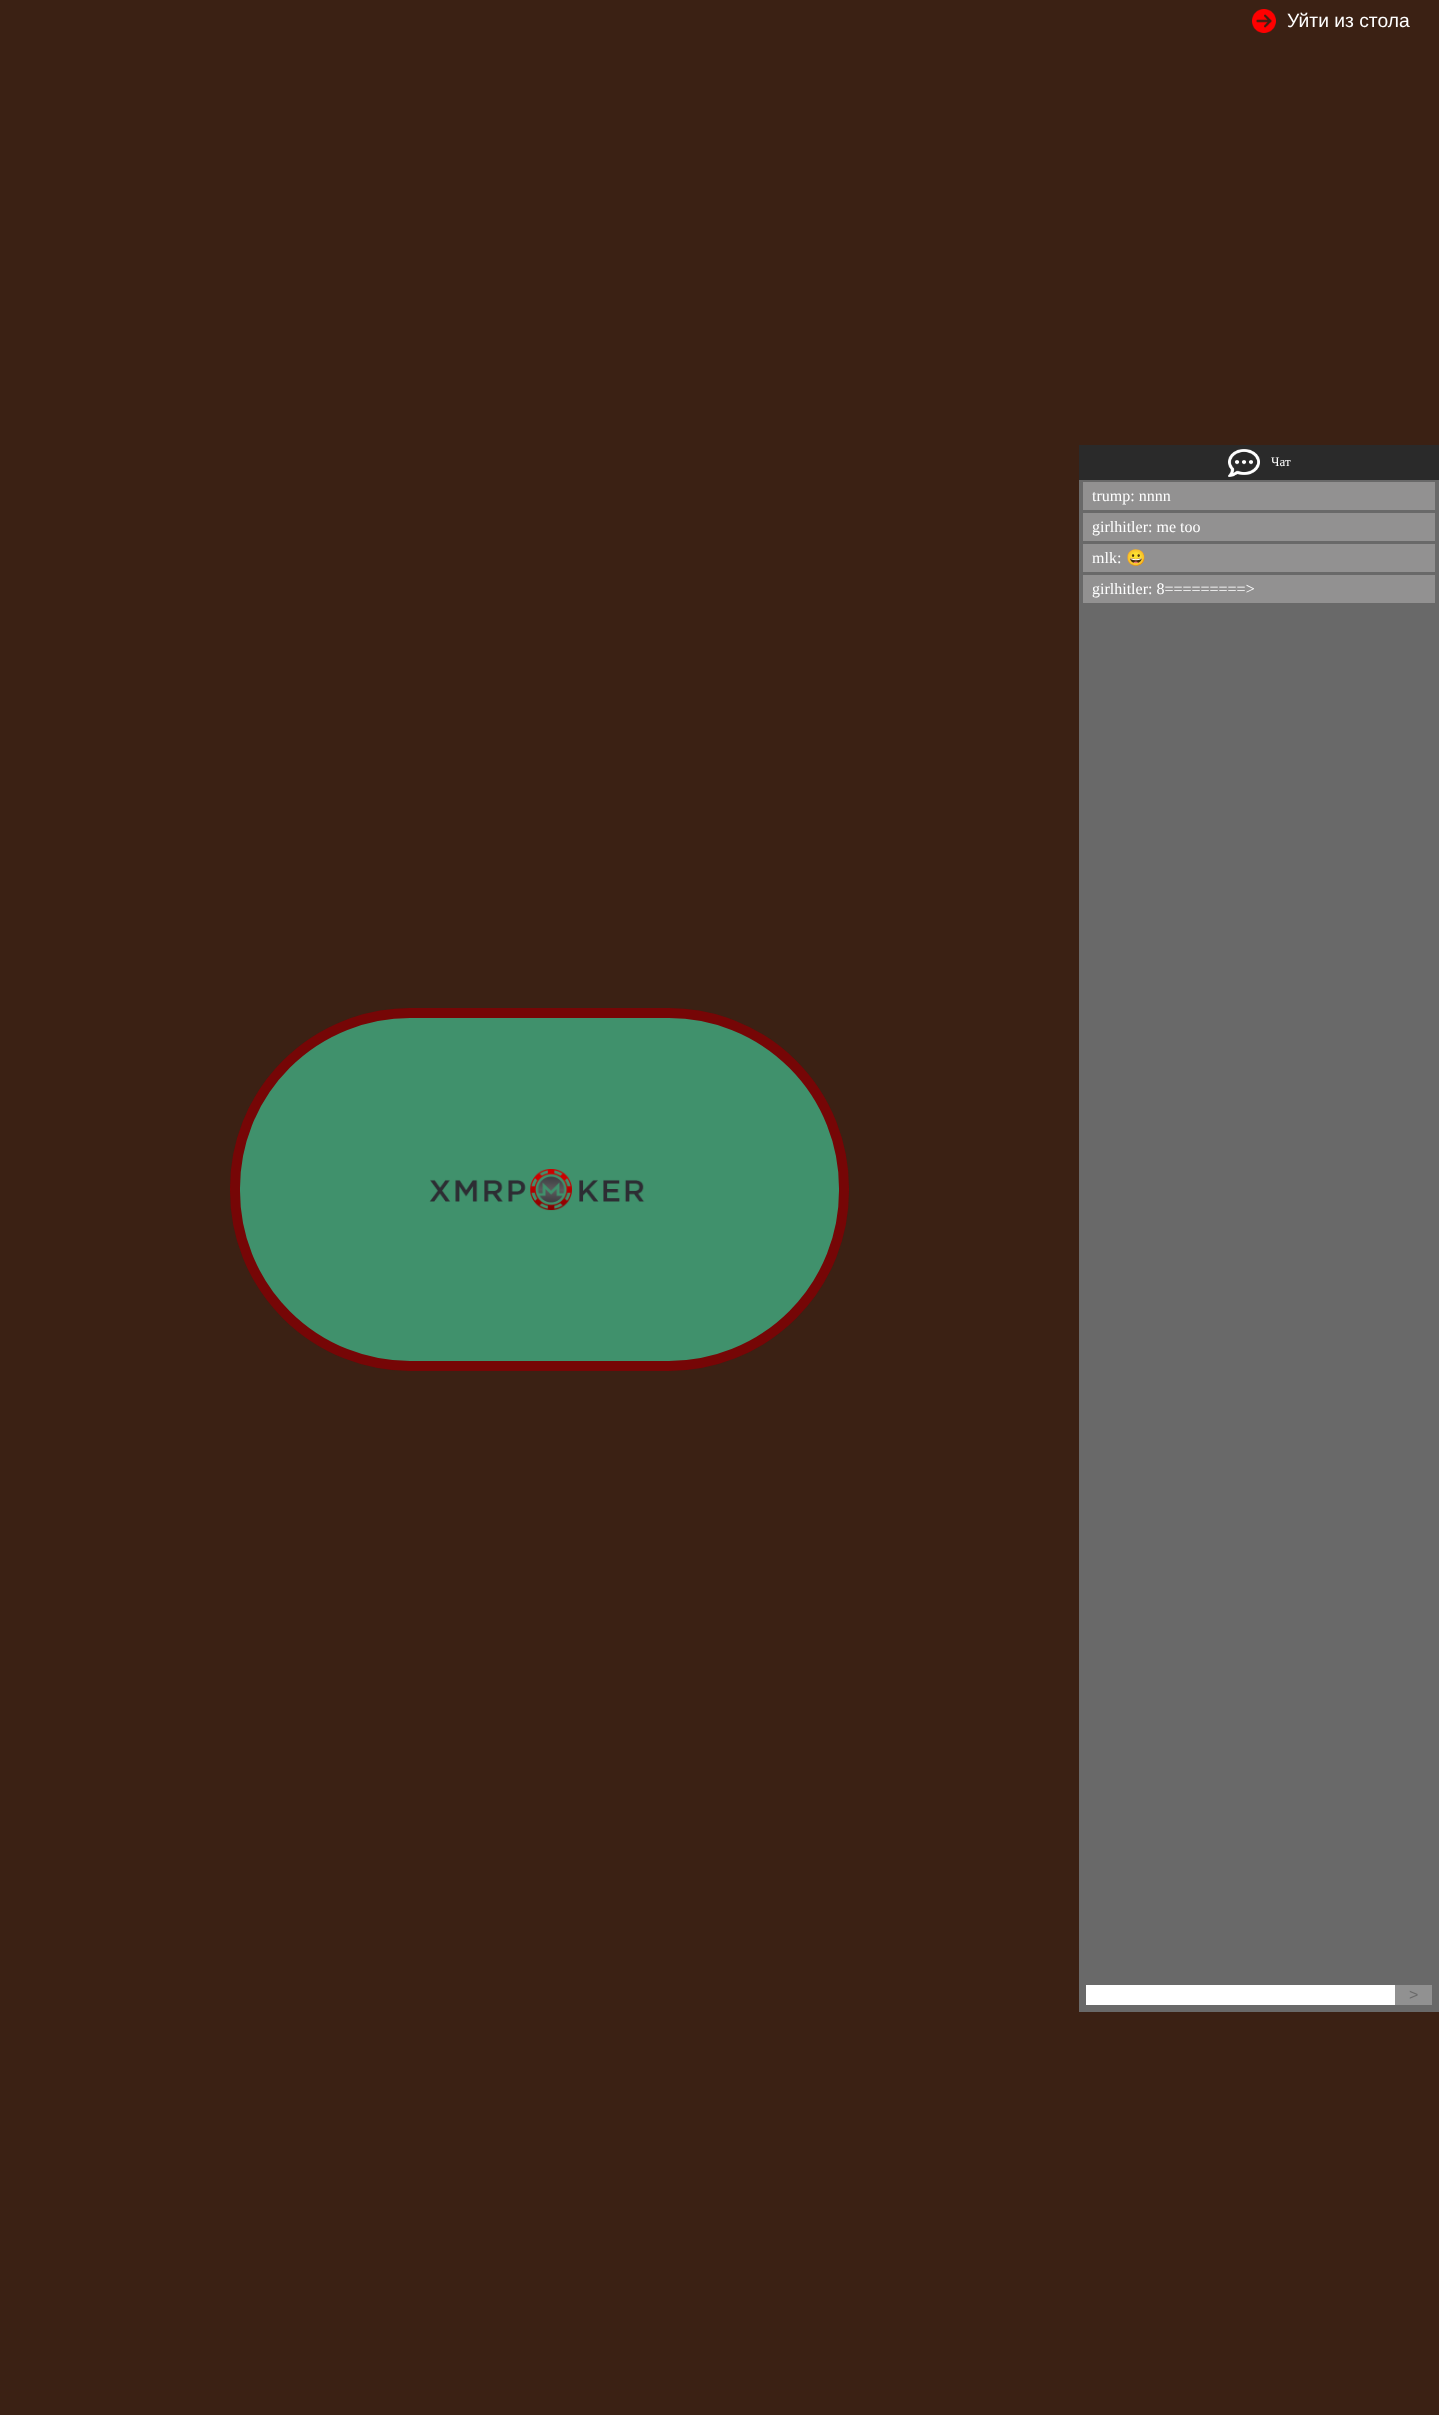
<svg xmlns="http://www.w3.org/2000/svg" width="1439" height="2415">
	<rect width="100%" height="100%" fill="#3B2114" />
	<image x="1252" y="9" width="24" height="24" href="assets/img1.png" />
	<text x="1287" y="27" font-family="Liberation Sans" font-size="19.25" fill="#FFFFFF">Уйти из стола</text>
	<rect x="235" y="1013" width="609" height="353" rx="175" fill="#40916C" stroke="#760606" stroke-width="10" />
	<image x="429" y="1169" width="216" height="42" href="assets/img2.png" />
	<rect x="1079" y="480" width="360" height="1532" fill="#696969" />
	<rect x="1079" y="445" width="360" height="35" fill="#2A2A2A" />
	<image x="1228" y="449" width="32" height="28" href="assets/img3.png" />
	<text x="1271" y="466" font-family="Liberation Serif" font-size="13" fill="#FFFFFF">Чат</text>
	<rect x="1083" y="482" width="352" height="28" fill="#929191" />
	<text x="1092" y="501" font-family="Liberation Serif" font-size="16" fill="#FFFFFF">trump: nnnn</text>
	<rect x="1083" y="513" width="352" height="28" fill="#929191" />
	<text x="1092" y="532" font-family="Liberation Serif" font-size="16" fill="#FFFFFF">girlhitler: me too</text>
	<rect x="1083" y="544" width="352" height="28" fill="#929191" />
	<text x="1092" y="563" font-family="Liberation Serif" font-size="16" fill="#FFFFFF">mlk:</text>
	<text x="1126" y="563" font-family="Noto Color Emoji" font-size="16" fill="#FFFFFF">😀</text>
	<rect x="1083" y="575" width="352" height="28" fill="#929191" />
	<text x="1092" y="594" font-family="Liberation Serif" font-size="16" fill="#FFFFFF">girlhitler: 8=========&gt;</text>
	<rect x="1086" y="1985" width="309" height="20" fill="#FFFFFF" />
	<rect x="1395" y="1985" width="37" height="20" fill="#919191" />
	<text x="1409" y="2000" font-family="Liberation Sans" font-size="16" fill="#6A6A6A">&gt;</text>
</svg>
